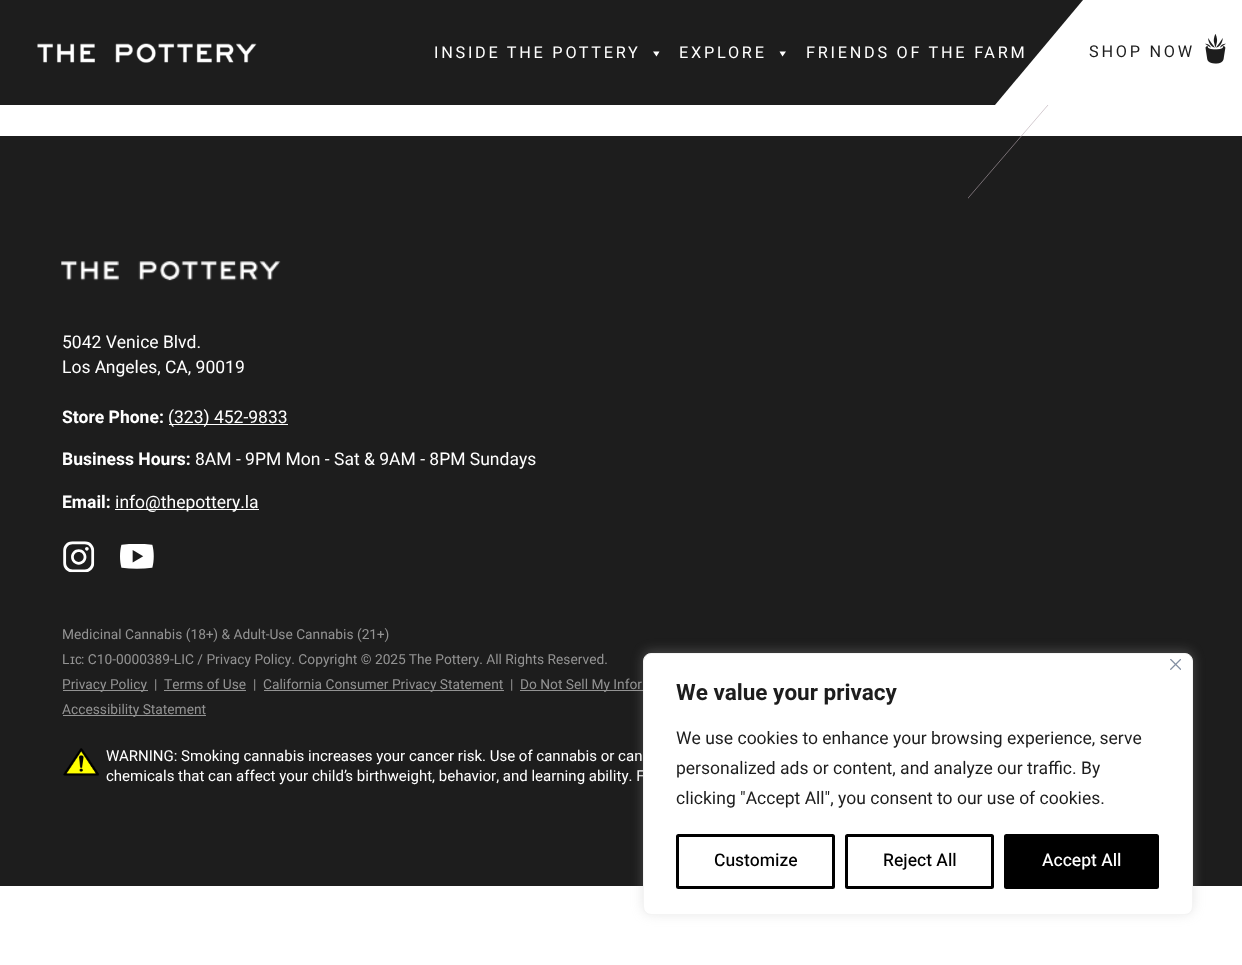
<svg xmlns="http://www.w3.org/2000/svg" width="1242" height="965">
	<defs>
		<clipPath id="clip1"><rect x="968" y="0" width="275" height="199" /></clipPath>
	</defs>
	<rect width="100%" height="100%" fill="#FFFFFF" />
	<rect x="0" y="136" width="1242" height="750" fill="#1D1D1D" />
	<g clip-path="url(#clip1)">
		<path d="M1242-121L948 221.5" fill="none" stroke="#B6A6AF" stroke-width="0.6" stroke-linecap="square" />
	</g>
	<rect x="0" y="0" width="1083" height="105" fill="#1D1D1D" />
	<image x="37" y="43" width="220" height="20" href="assets/img1.png" />
	<text x="434" y="58" font-family="Heebo" font-size="16.25" letter-spacing="2.75" fill="#FFFFFF">INSIDE THE POTTERY</text>
	<path d="M659.5 51.5L656.5 56.5L653 51.5Z" fill="#FFFFFF" />
	<text x="679" y="58" font-family="Heebo" font-size="16.25" letter-spacing="2.75" fill="#FFFFFF">EXPLORE</text>
	<path d="M786 51.5L782.5 56.5L779.5 51.5Z" fill="#FFFFFF" />
	<text x="806" y="58" font-family="Heebo" font-size="16.25" letter-spacing="2.75" fill="#FFFFFF">FRIENDS OF THE FARM</text>
	<rect x="1120" y="0" width="19" height="22" fill="#FFFFFF" />
	<path d="M1083 0H1208L1120 105H995Z" fill="#FFFFFF" />
	<image x="1205" y="34" width="21" height="30" href="assets/img2.png" />
	<text x="1089" y="57" font-family="Heebo" font-size="16.25" letter-spacing="2.75" fill="#1D1D1D">SHOP NOW</text>
	<image x="61" y="261" width="220" height="20" href="assets/img3.png" />
	<g font-family="Heebo" font-size="17.5" fill="#FFFFFF">
		<text x="62" y="348">5042 Venice Blvd.</text>
		<text x="62" y="373">Los Angeles, CA, 90019</text>
	</g>
	<text x="62" y="423" font-family="Heebo" font-size="17.5" font-weight="700" fill="#FFFFFF">Store Phone:</text>
	<rect x="169" y="424" width="119" height="1" fill="#FFFFFF" />
	<text x="168" y="423" font-family="Heebo" font-size="17.5" fill="#FFFFFF">(323) 452-9833</text>
	<text x="62" y="465" font-family="Heebo" font-size="17.5" font-weight="700" fill="#FFFFFF">Business Hours:</text>
	<text x="195" y="465" font-family="Heebo" font-size="17.5" fill="#FFFFFF">8AM - 9PM Mon - Sat &amp; 9AM - 8PM Sundays</text>
	<text x="62" y="508" font-family="Heebo" font-size="17.5" font-weight="700" fill="#FFFFFF">Email:</text>
	<rect x="115" y="509" width="144" height="1" fill="#FFFFFF" />
	<text x="115" y="508" font-family="Heebo" font-size="17.5" fill="#FFFFFF">info@thepottery.la</text>
	<image x="63" y="541" width="32" height="32" href="assets/img4.png" />
	<image x="120" y="544" width="34" height="25" href="assets/img5.png" />
	<g font-family="Heebo" font-size="13.75" fill="#939393">
		<text x="62" y="639">Medicinal Cannabis (18+) &amp; Adult-Use Cannabis (21+)</text>
		<text x="62" y="664">L</text>
	</g>
	<text x="70" y="664" font-family="Liberation Sans" font-size="13.75" fill="#939393">ɪᴄ</text>
	<text x="81" y="664" font-family="Heebo" font-size="13.75" fill="#939393">: C10-0000389-LIC / Privacy Policy. Copyright © 2025 The Pottery. All Rights Reserved.</text>
	<rect x="63" y="690" width="85" height="1" fill="#939393" />
	<g font-family="Heebo" font-size="13.75" fill="#939393">
		<text x="62" y="689">Privacy Policy</text>
		<text x="154" y="689">|</text>
		<text x="164" y="689">Terms of Use</text>
	</g>
	<rect x="164" y="690" width="82" height="1" fill="#939393" />
	<text x="253" y="689" font-family="Heebo" font-size="13.75" fill="#939393">|</text>
	<rect x="264" y="690" width="240" height="1" fill="#939393" />
	<g font-family="Heebo" font-size="13.75" fill="#939393">
		<text x="263" y="689">California Consumer Privacy Statement</text>
		<text x="510" y="689">|</text>
	</g>
	<rect x="520" y="690" width="123" height="1" fill="#939393" />
	<text x="520" y="689" font-family="Heebo" font-size="13.75" fill="#939393">Do Not Sell My Infor</text>
	<rect x="63" y="715" width="143" height="1" fill="#939393" />
	<text x="62" y="714" font-family="Heebo" font-size="13.75" fill="#939393">Accessibility Statement</text>
	<image x="63" y="748" width="36" height="28" href="assets/img6.png" />
	<g font-family="Heebo" font-size="15" fill="#FFFFFF">
		<text x="106" y="761">WARNING: Smoking cannabis increases your cancer risk. Use of cannabis or can</text>
		<text x="106" y="781">chemicals that can affect your child’s birthweight, behavior, and learning ability. F</text>
	</g>
	<rect x="643" y="651" width="550" height="263" rx="8" fill="#ACABAB" fill-opacity="0.3" filter="blur(6px)" />
	<rect x="643.5" y="653.5" width="549" height="261" rx="7.5" fill="#FFFFFF" stroke="#F4F4F4" />
	<image x="1170" y="659" width="11" height="11" href="assets/img7.png" />
	<text x="676" y="700" font-family="Heebo" font-size="22.5" font-weight="700" fill="#1D1D1D">We value your privacy</text>
	<g font-family="Heebo" font-size="17.5" fill="#1D1D1D">
		<text x="676" y="744">We use cookies to enhance your browsing experience, serve</text>
		<text x="676" y="774">personalized ads or content, and analyze our traffic. By</text>
		<text x="676" y="804">clicking "Accept All", you consent to our use of cookies.</text>
	</g>
	<rect x="677.5" y="835.5" width="156" height="52" rx="1" fill="none" stroke="#000000" stroke-width="3" />
	<text x="714" y="866" font-family="Heebo" font-size="17.5" font-weight="500" fill="#000000">Customize</text>
	<rect x="846.5" y="835.5" width="146" height="52" rx="1" fill="none" stroke="#000000" stroke-width="3" />
	<text x="883" y="866" font-family="Heebo" font-size="17.5" font-weight="500" fill="#000000">Reject All</text>
	<rect x="1005.5" y="835.5" width="152" height="52" rx="1" fill="#000000" stroke="#000000" stroke-width="3" />
	<text x="1042" y="866" font-family="Heebo" font-size="17.5" font-weight="500" fill="#FFFFFF">Accept All</text>
</svg>
